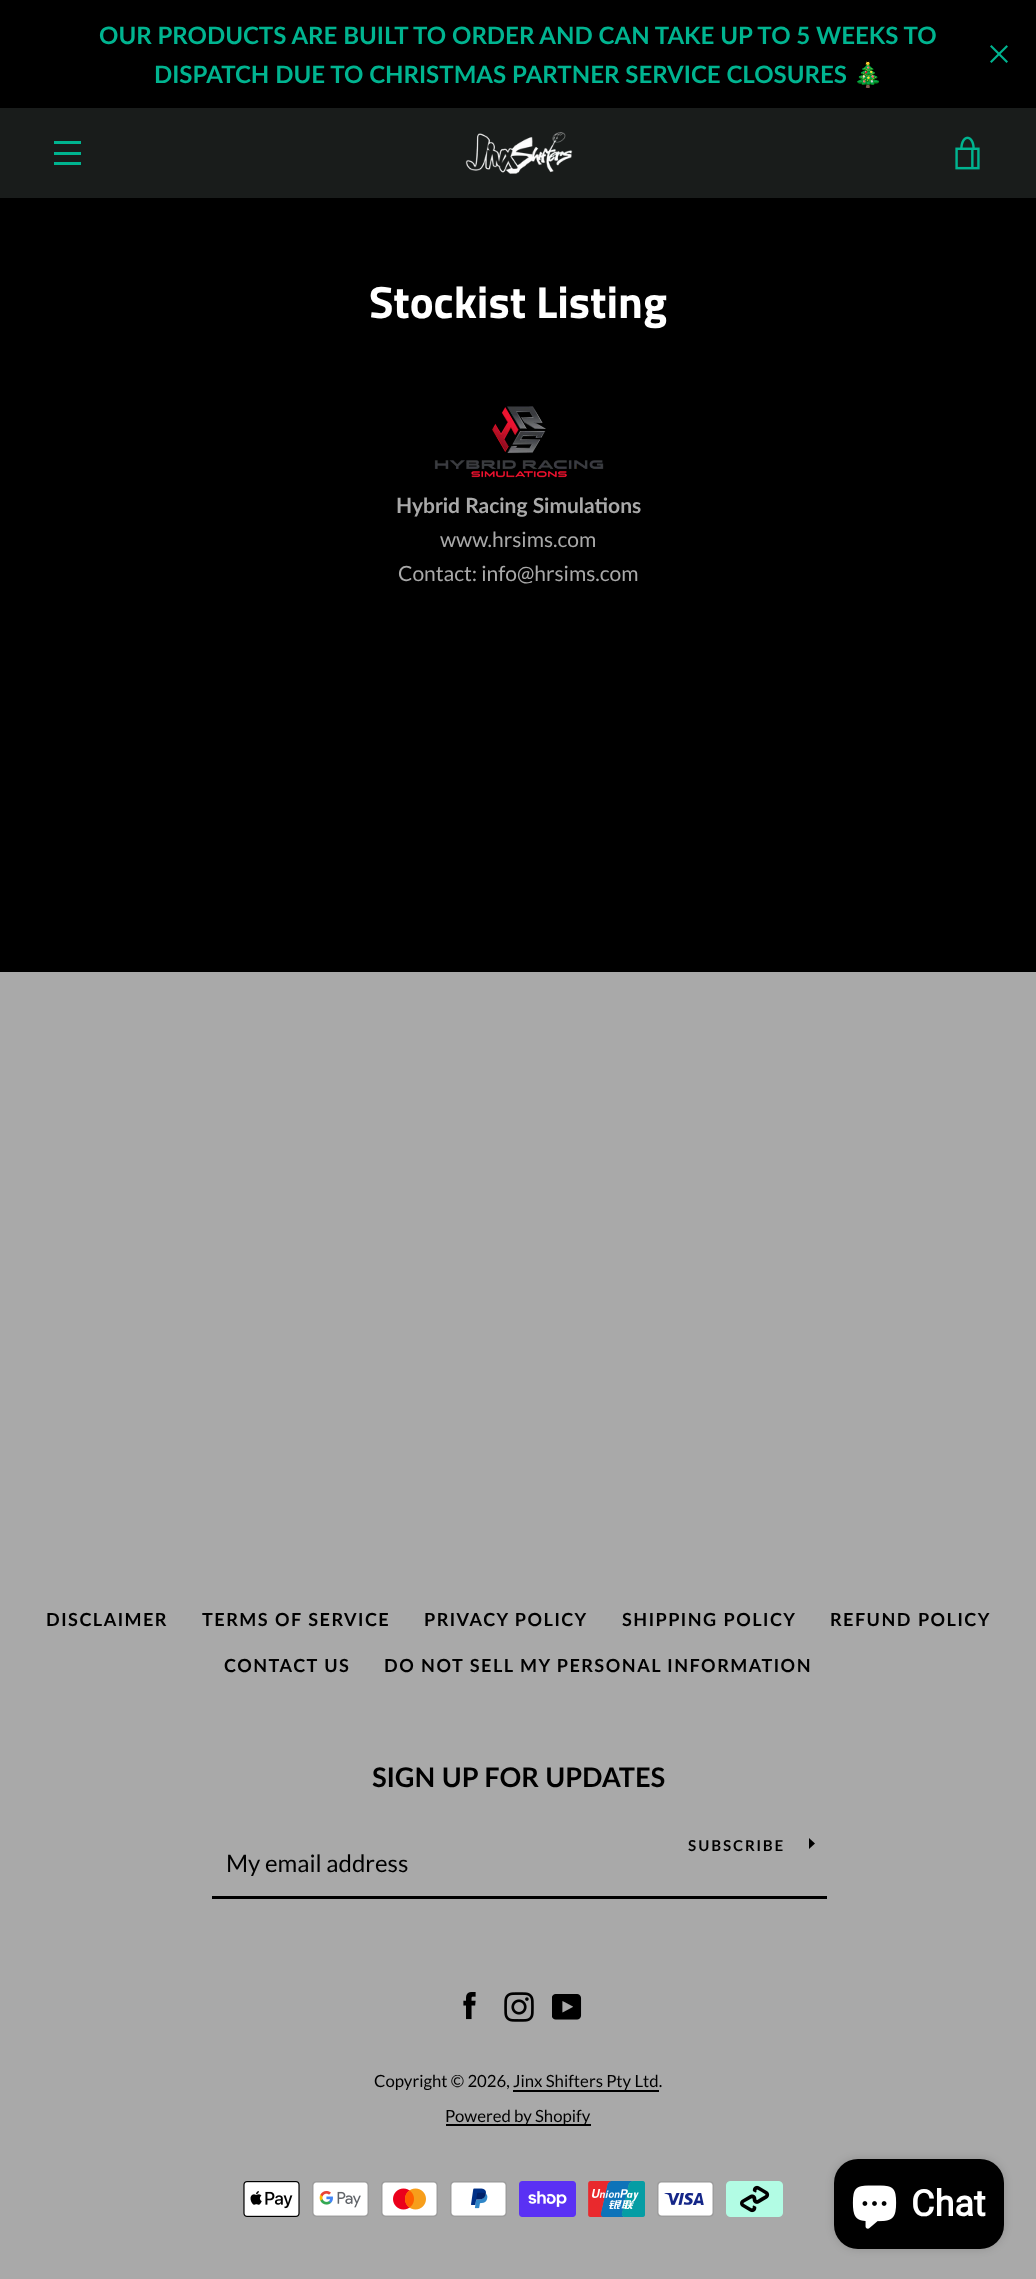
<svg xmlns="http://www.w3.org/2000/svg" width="1036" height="2279">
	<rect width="100%" height="100%" fill="#A9A9A9" />
	<rect x="0" y="198" width="1036" height="774" fill="#000000" />
	<rect x="0" y="108" width="1036" height="90" fill="#191C1B" />
	<rect x="0" y="0" width="1036" height="108" fill="#000000" />
	<g font-family="Lato" font-size="24" font-weight="700" fill="#00B490">
		<text x="99" y="44">OUR PRODUCTS ARE BUILT TO ORDER AND CAN TAKE UP TO 5 WEEKS TO</text>
		<text x="154" y="83">DISPATCH DUE TO CHRISTMAS PARTNER SERVICE CLOSURES</text>
	</g>
	<text x="853" y="83" font-family="Noto Color Emoji" font-size="24" font-weight="700" fill="#00B490">🎄</text>
	<image x="990" y="45" width="18" height="18" href="assets/img1.png" />
	<rect x="54" y="141" width="27" height="3" fill="#00B490" />
	<rect x="54" y="152" width="27" height="3" fill="#00B490" />
	<rect x="54" y="162" width="27" height="3" fill="#00B490" />
	<image x="465" y="132" width="108" height="42" href="assets/img2.png" />
	<image x="955" y="136" width="25" height="34" href="assets/img3.png" />
	<text x="369" y="318" font-family="Titillium Web" font-size="45" font-weight="700" fill="#FFFFFF">Stockist Listing</text>
	<image x="434" y="406" width="170" height="72" href="assets/img4.png" />
	<text x="396" y="513" font-family="Lato" font-size="21" font-weight="700" fill="#A9A9A9">Hybrid Racing Simulations</text>
	<g font-family="Lato" font-size="21" fill="#A9A9A9">
		<text x="440" y="547">www.hrsims.com</text>
		<text x="398" y="581">Contact: info@hrsims.com</text>
	</g>
	<g font-family="Lato" font-size="18" font-weight="700" letter-spacing="1.5" fill="#000000">
		<text x="46" y="1626">DISCLAIMER</text>
		<text x="202" y="1626">TERMS OF SERVICE</text>
		<text x="424" y="1626">PRIVACY POLICY</text>
		<text x="622" y="1626">SHIPPING POLICY</text>
		<text x="830" y="1626">REFUND POLICY</text>
		<text x="224" y="1672">CONTACT US</text>
		<text x="384" y="1672">DO NOT SELL MY PERSONAL INFORMATION</text>
	</g>
	<text x="372" y="1787" font-family="Lato" font-size="27" font-weight="700" fill="#000000">SIGN UP FOR UPDATES</text>
	<rect x="212" y="1896" width="615" height="3" fill="#000000" />
	<text x="688" y="1851" font-family="Lato" font-size="15" font-weight="700" letter-spacing="1.9" fill="#000000">SUBSCRIBE</text>
	<path d="M815 1843.5L809 1849V1838Z" fill="#000000" />
	<text x="226" y="1872" font-family="Lato" font-size="24" fill="#000000">My email address</text>
	<image x="463" y="1992" width="13" height="28" href="assets/img5.png" />
	<image x="504" y="1992" width="30" height="30" href="assets/img6.png" />
	<image x="552" y="1994" width="30" height="26" href="assets/img7.png" />
	<text x="374" y="2087" font-family="Lato" font-size="16.75" fill="#000000">Copyright © 2026, Jinx Shifters Pty Ltd.</text>
	<rect x="513" y="2090" width="146" height="2" fill="#000000" />
	<rect x="446" y="2124" width="145" height="2" fill="#000000" />
	<text x="445" y="2122" font-family="Lato" font-size="16.75" fill="#000000">Powered by Shopify</text>
	<image x="243" y="2181" width="57" height="36" href="assets/img8.png" />
	<image x="312" y="2181" width="57" height="36" href="assets/img9.png" />
	<image x="381" y="2181" width="57" height="36" href="assets/img10.png" />
	<image x="450" y="2181" width="57" height="36" href="assets/img11.png" />
	<image x="519" y="2181" width="57" height="36" href="assets/img12.png" />
	<image x="588" y="2181" width="57" height="36" href="assets/img13.png" />
	<image x="657" y="2181" width="57" height="36" href="assets/img14.png" />
	<image x="726" y="2181" width="57" height="36" href="assets/img15.png" />
	<rect x="834" y="2159" width="170" height="90" rx="24" fill="#000000" fill-opacity="0.15" filter="blur(4px)" />
	<rect x="834" y="2159" width="170" height="90" rx="24" fill="#000000" />
	<image x="852" y="2185" width="45" height="44" href="assets/img16.png" />
	<text x="911" y="2216" font-family="Roboto" font-size="36" font-weight="700" fill="#FFFFFF">Chat</text>
</svg>
